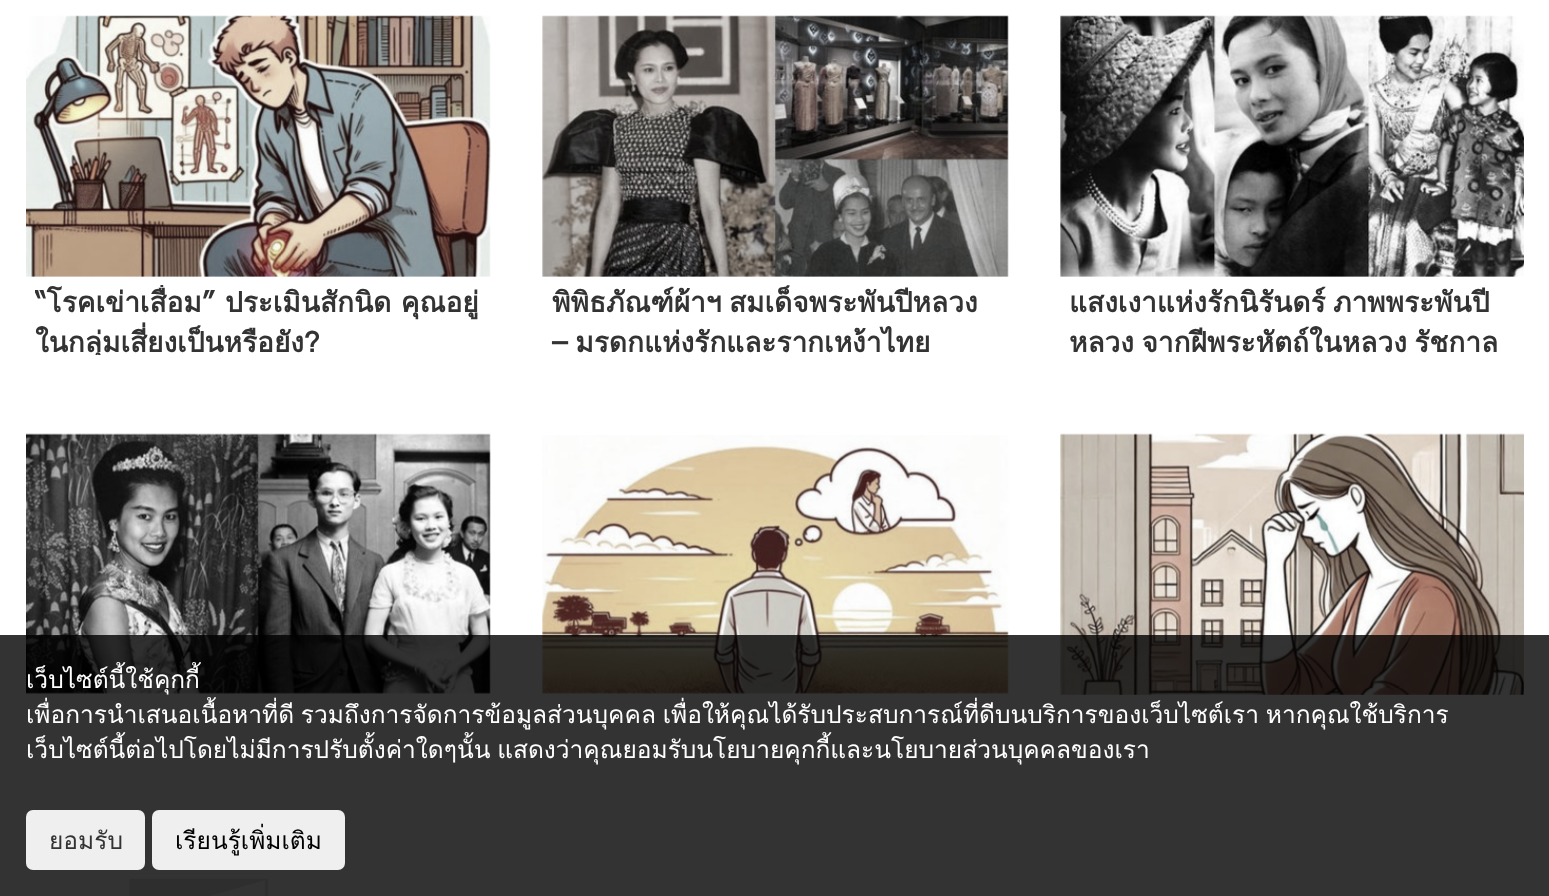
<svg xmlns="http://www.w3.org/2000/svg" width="1549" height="896">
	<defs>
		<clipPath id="clip1"><rect x="35" y="285" width="446" height="70" /></clipPath>
		<clipPath id="clip2"><rect x="551" y="285" width="448" height="70" /></clipPath>
	</defs>
	<rect width="100%" height="100%" fill="#FFFFFF" />
	<image x="26" y="15" width="465" height="262" href="assets/img1.png" />
	<g clip-path="url(#clip1)">
		<g font-family="Loma" font-size="28" font-weight="700" fill="#333333">
			<text x="35" y="312">“โรคเข่าเสื่อม” ประเมินสักนิด คุณอยู่</text>
			<text x="35" y="352">ในกลุ่มเสี่ยงเป็นหรือยัง?</text>
		</g>
	</g>
	<image x="542" y="15" width="467" height="262" href="assets/img2.png" />
	<g clip-path="url(#clip2)">
		<text x="552" y="312" word-spacing="-2" font-family="Loma" font-size="28" font-weight="700" fill="#333333">พิพิธภัณฑ์ผ้าฯ สมเด็จพระพันปีหลวง</text>
	</g>
	<text x="552" y="352" word-spacing="-1.5" font-family="Loma" font-size="28" font-weight="700" fill="#333333">– มรดกแห่งรักและรากเหง้าไทย</text>
	<image x="1060" y="15" width="464" height="262" href="assets/img3.png" />
	<g font-family="Loma" font-size="28" font-weight="700" fill="#333333">
		<text x="1069" y="312" word-spacing="-2">แสงเงาแห่งรักนิรันดร์ ภาพพระพันปี</text>
		<text x="1069" y="352" word-spacing="-2">หลวง จากฝีพระหัตถ์ในหลวง รัชกาล</text>
	</g>
	<image x="26" y="433" width="465" height="261" href="assets/img4.png" />
	<image x="542" y="435" width="467" height="259" href="assets/img5.png" />
	<image x="1060" y="433" width="464" height="262" href="assets/img6.png" />
	<image x="129" y="878" width="139" height="18" href="assets/img7.png" />
	<rect x="0" y="635" width="1549" height="261" fill="#000000" fill-opacity="0.8" />
	<g font-family="Loma" font-size="24.5" fill="#FFFFFF">
		<text x="26" y="688">เว็บไซต์นี้ใช้คุกกี้</text>
		<text x="26" y="723" word-spacing="-1.5">เพื่อการนำเสนอเนื้อหาที่ดี รวมถึงการจัดการข้อมูลส่วนบุคคล เพื่อให้คุณได้รับประสบการณ์ที่ดีบนบริการของเว็บไซต์เรา หากคุณใช้บริการ</text>
		<text x="26" y="758" word-spacing="-1.5">เว็บไซต์นี้ต่อไปโดยไม่มีการปรับตั้งค่าใดๆนั้น แสดงว่าคุณยอมรับนโยบายคุกกี้และนโยบายส่วนบุคคลของเรา</text>
	</g>
	<rect x="26" y="810" width="119" height="60" rx="7" fill="#EFEFEF" />
	<text x="49" y="849" font-family="Loma" font-size="24.5" fill="#333333">ยอมรับ</text>
	<rect x="152" y="810" width="193" height="60" rx="7" fill="#EFEFEF" />
	<text x="175" y="849" font-family="Loma" font-size="24.5" fill="#000000">เรียนรู้เพิ่มเติม</text>
</svg>
